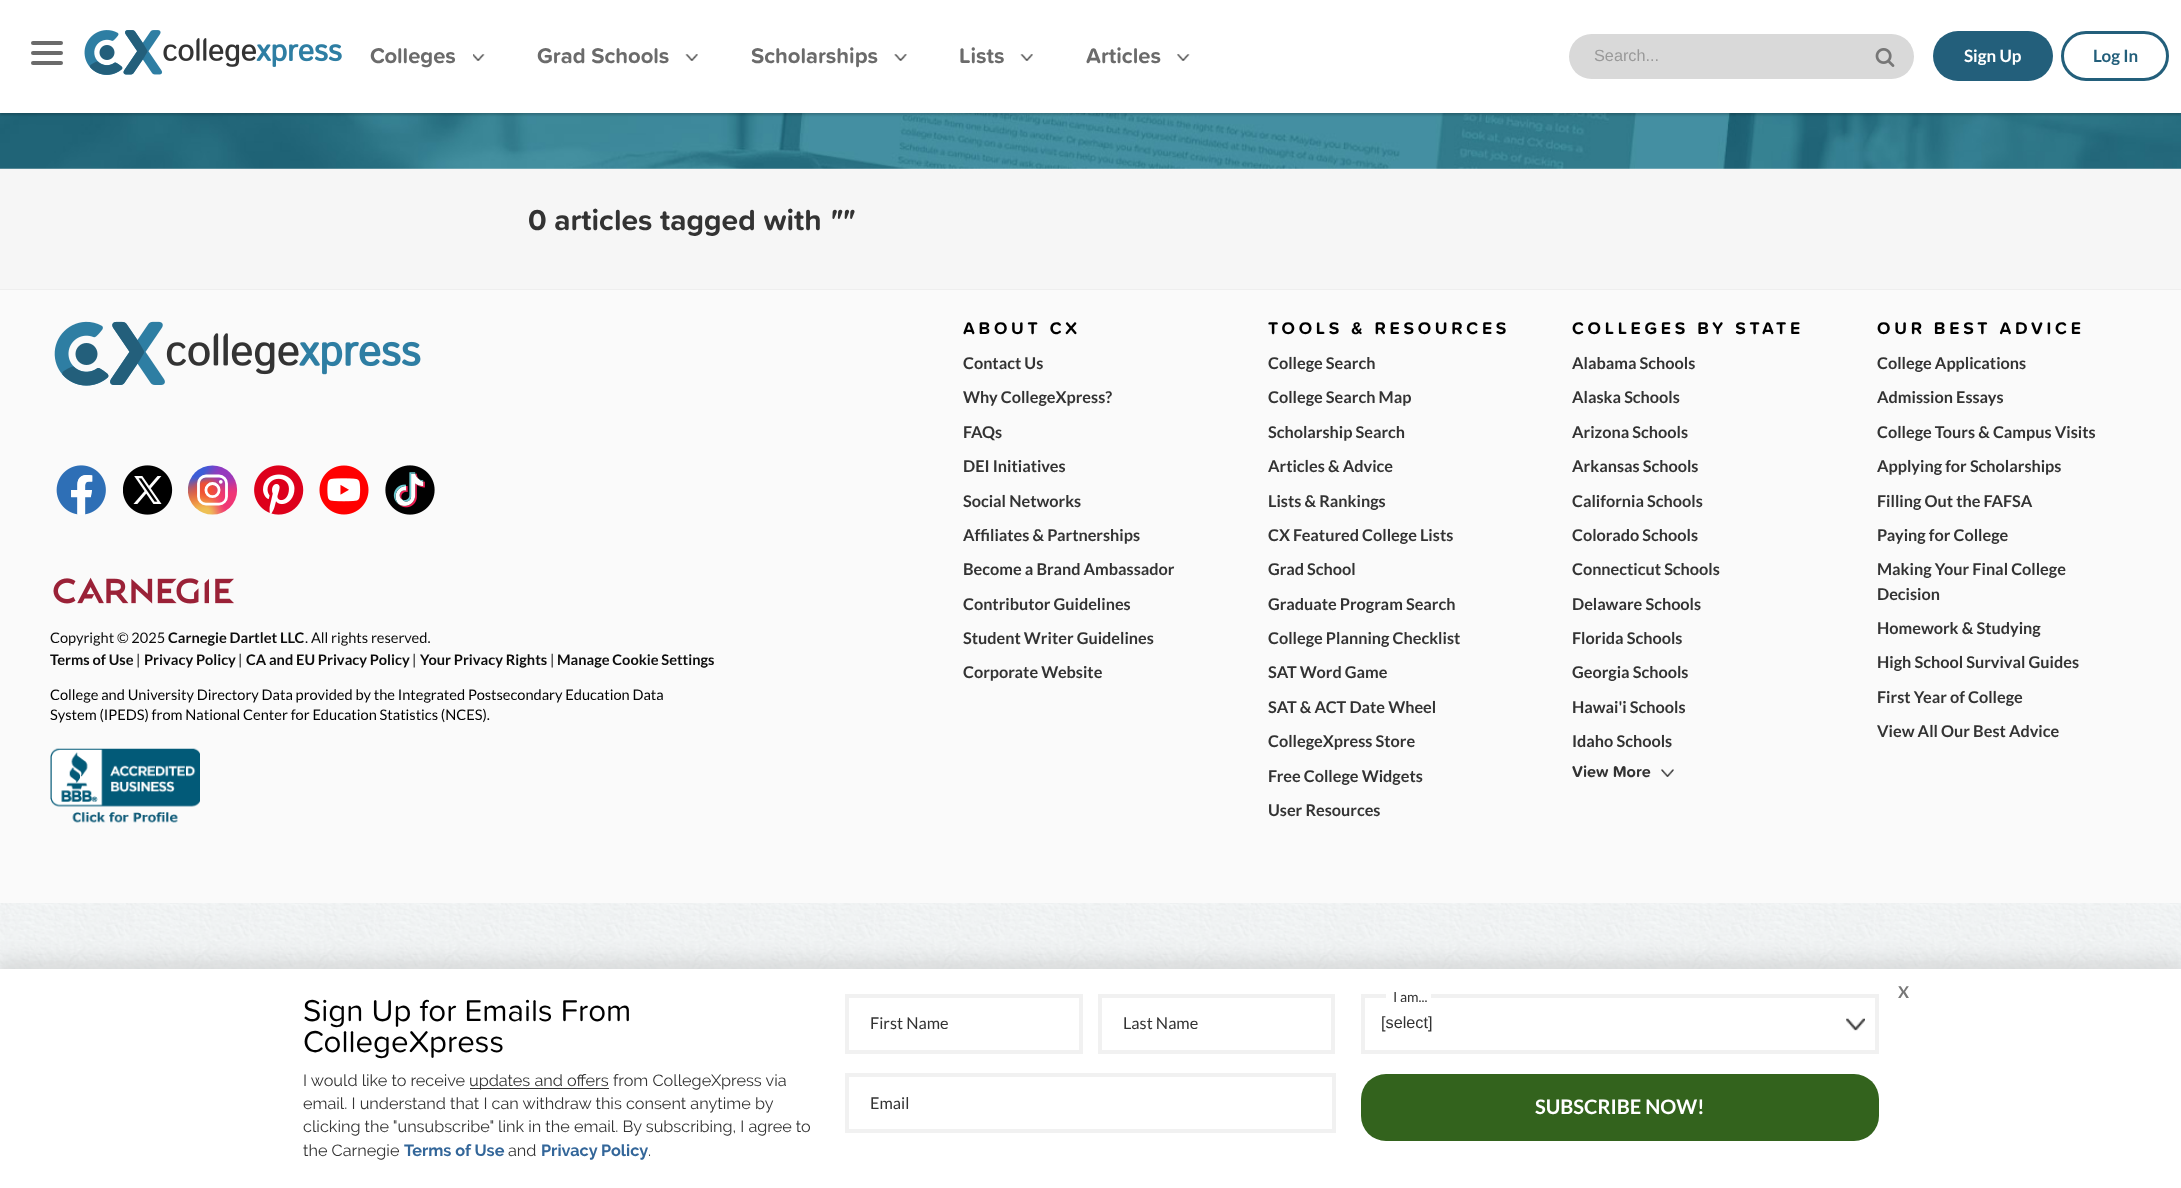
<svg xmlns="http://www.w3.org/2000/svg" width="2181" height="1188">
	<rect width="100%" height="100%" fill="#FFFFFF" />
	<image x="0" y="903" width="2181" height="66" href="assets/img1.png" />
	<rect x="0" y="168" width="2181" height="121" fill="#F6F6F6" />
	<image x="0" y="113" width="2181" height="56" href="assets/img8.png" />
	<rect x="0" y="3" width="2181" height="112" fill="#000000" fill-opacity="0.2" filter="blur(1px)" />
	<rect x="0" y="1" width="2181" height="112" fill="#FFFFFF" />
	<rect x="31" y="41" width="32" height="4" rx="2" fill="#6B6B6B" />
	<rect x="31" y="51" width="32" height="4" rx="2" fill="#6B6B6B" />
	<rect x="31" y="61" width="32" height="4" rx="2" fill="#6B6B6B" />
	<image x="84" y="30" width="258" height="45" href="assets/img2.png" />
	<text x="370" y="63" font-family="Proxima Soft" font-size="22" font-weight="700" fill="#6B6B6B">Colleges</text>
	<image x="473" y="54" width="12" height="7" href="assets/img3.png" />
	<text x="537" y="63" font-family="Proxima Soft" font-size="22" font-weight="700" fill="#6B6B6B">Grad Schools</text>
	<image x="685" y="54" width="13" height="7" href="assets/img4.png" />
	<text x="751" y="63" font-family="Proxima Soft" font-size="22" font-weight="700" fill="#6B6B6B">Scholarships</text>
	<image x="894" y="54" width="13" height="7" href="assets/img5.png" />
	<text x="959" y="63" font-family="Proxima Soft" font-size="22" font-weight="700" fill="#6B6B6B">Lists</text>
	<image x="1020" y="54" width="13" height="7" href="assets/img4.png" />
	<text x="1086" y="63" font-family="Proxima Soft" font-size="22" font-weight="700" fill="#6B6B6B">Articles</text>
	<image x="1177" y="54" width="13" height="7" href="assets/img6.png" />
	<rect x="1569" y="34" width="345" height="45" rx="22.5" fill="#D9D9D9" />
	<text x="1594" y="61" font-family="Liberation Sans" font-size="16.25" fill="#999999">Search...</text>
	<image x="1875" y="48" width="20" height="19" href="assets/img7.png" />
	<rect x="1933" y="31" width="120" height="50" rx="25" fill="#235F7B" />
	<text x="1964" y="62" font-family="Lato" font-size="17" font-weight="700" fill="#FFFFFF">Sign Up</text>
	<rect x="2062.5" y="32.5" width="105" height="47" rx="23.5" fill="none" stroke="#235F7B" stroke-width="3" />
	<text x="2093" y="62" font-family="Lato" font-size="17" font-weight="700" fill="#235F7B">Log In</text>
	<text x="528" y="230" font-family="Proxima Soft" font-size="30" font-weight="700" fill="#333333">0 articles tagged with</text>
	<text x="829" y="230" font-family="Proxima Soft" font-size="30" font-weight="700" font-style="italic" fill="#333333">""</text>
	<rect x="0" y="290" width="2181" height="613" fill="#FAFAFA" />
	<rect x="0" y="289" width="2181" height="1" fill="#EEEEEE" />
	<image x="54" y="321" width="367" height="65" href="assets/img9.png" />
	<image x="56" y="465" width="50" height="50" href="assets/img10.png" />
	<image x="123" y="465" width="50" height="50" href="assets/img11.png" />
	<image x="188" y="465" width="50" height="50" href="assets/img12.png" />
	<image x="254" y="465" width="50" height="50" href="assets/img13.png" />
	<image x="319" y="465" width="50" height="50" href="assets/img14.png" />
	<image x="385" y="465" width="50" height="50" href="assets/img15.png" />
	<image x="53" y="577" width="181" height="27" href="assets/img16.png" />
	<text x="50" y="643" font-family="Lato" font-size="14.6" fill="#0C0C0C">Copyright © 2025</text>
	<text x="168" y="643" font-family="Lato" font-size="14.6" font-weight="700" fill="#0C0C0C">Carnegie Dartlet LLC</text>
	<text x="305" y="643" font-family="Lato" font-size="14.6" fill="#0C0C0C">. All rights reserved.</text>
	<text x="50" y="665" font-family="Lato" font-size="14.6" font-weight="700" fill="#0C0C0C">Terms of Use</text>
	<text x="136" y="665" font-family="Lato" font-size="14.6" fill="#0C0C0C">|</text>
	<text x="144" y="665" font-family="Lato" font-size="14.6" font-weight="700" fill="#0C0C0C">Privacy Policy</text>
	<text x="238" y="665" font-family="Lato" font-size="14.6" fill="#0C0C0C">|</text>
	<text x="246" y="665" font-family="Lato" font-size="14.6" font-weight="700" fill="#0C0C0C">CA and EU Privacy Policy</text>
	<text x="412" y="665" font-family="Lato" font-size="14.6" fill="#0C0C0C">|</text>
	<text x="420" y="665" font-family="Lato" font-size="14.6" font-weight="700" fill="#0C0C0C">Your Privacy Rights</text>
	<text x="550" y="665" font-family="Lato" font-size="14.6" fill="#0C0C0C">|</text>
	<text x="557" y="665" font-family="Lato" font-size="14.6" font-weight="700" fill="#0C0C0C">Manage Cookie Settings</text>
	<g font-family="Lato" font-size="14.6" fill="#000000">
		<text x="50" y="700">College and University Directory Data provided by the Integrated Postsecondary Education Data</text>
		<text x="50" y="720">System (IPEDS) from National Center for Education Statistics (NCES).</text>
	</g>
	<image x="50" y="748" width="150" height="75" href="assets/img17.png" />
	<text x="963" y="334" font-family="Proxima Soft" font-size="17.5" font-weight="700" letter-spacing="3.75" fill="#000000">ABOUT CX</text>
	<g font-family="Lato" font-size="16.25" font-weight="700" fill="#333333">
		<text x="963" y="369">Contact Us</text>
		<text x="963" y="403">Why CollegeXpress?</text>
		<text x="963" y="438">FAQs</text>
		<text x="963" y="472">DEI Initiatives</text>
		<text x="963" y="507">Social Networks</text>
		<text x="963" y="541">Affiliates &amp; Partnerships</text>
		<text x="963" y="575">Become a Brand Ambassador</text>
		<text x="963" y="610">Contributor Guidelines</text>
		<text x="963" y="644">Student Writer Guidelines</text>
		<text x="963" y="678">Corporate Website</text>
	</g>
	<text x="1268" y="334" font-family="Proxima Soft" font-size="17.5" font-weight="700" letter-spacing="3.75" fill="#000000">TOOLS &amp; RESOURCES</text>
	<g font-family="Lato" font-size="16.25" font-weight="700" fill="#333333">
		<text x="1268" y="369">College Search</text>
		<text x="1268" y="403">College Search Map</text>
		<text x="1268" y="438">Scholarship Search</text>
		<text x="1268" y="472">Articles &amp; Advice</text>
		<text x="1268" y="507">Lists &amp; Rankings</text>
		<text x="1268" y="541">CX Featured College Lists</text>
		<text x="1268" y="575">Grad School</text>
		<text x="1268" y="610">Graduate Program Search</text>
		<text x="1268" y="644">College Planning Checklist</text>
		<text x="1268" y="678">SAT Word Game</text>
		<text x="1268" y="713">SAT &amp; ACT Date Wheel</text>
		<text x="1268" y="747">CollegeXpress Store</text>
		<text x="1268" y="782">Free College Widgets</text>
		<text x="1268" y="816">User Resources</text>
	</g>
	<text x="1572" y="334" font-family="Proxima Soft" font-size="17.5" font-weight="700" letter-spacing="3.75" fill="#000000">COLLEGES BY STATE</text>
	<g font-family="Lato" font-size="16.25" font-weight="700" fill="#333333">
		<text x="1572" y="369">Alabama Schools</text>
		<text x="1572" y="403">Alaska Schools</text>
		<text x="1572" y="438">Arizona Schools</text>
		<text x="1572" y="472">Arkansas Schools</text>
		<text x="1572" y="507">California Schools</text>
		<text x="1572" y="541">Colorado Schools</text>
		<text x="1572" y="575">Connecticut Schools</text>
		<text x="1572" y="610">Delaware Schools</text>
		<text x="1572" y="644">Florida Schools</text>
		<text x="1572" y="678">Georgia Schools</text>
		<text x="1572" y="713">Hawai'i Schools</text>
		<text x="1572" y="747">Idaho Schools</text>
	</g>
	<text x="1572" y="777" font-family="Proxima Soft" font-size="16.25" font-weight="700" fill="#333333">View More</text>
	<image x="1661" y="769" width="13" height="8" href="assets/img18.png" />
	<text x="1877" y="334" font-family="Proxima Soft" font-size="17.5" font-weight="700" letter-spacing="3.75" fill="#000000">OUR BEST ADVICE</text>
	<g font-family="Lato" font-size="16.25" font-weight="700" fill="#333333">
		<text x="1877" y="369">College Applications</text>
		<text x="1877" y="403">Admission Essays</text>
		<text x="1877" y="438">College Tours &amp; Campus Visits</text>
		<text x="1877" y="472">Applying for Scholarships</text>
		<text x="1877" y="507">Filling Out the FAFSA</text>
		<text x="1877" y="541">Paying for College</text>
		<text x="1877" y="575">Making Your Final College</text>
		<text x="1877" y="600">Decision</text>
		<text x="1877" y="634">Homework &amp; Studying</text>
		<text x="1877" y="668">High School Survival Guides</text>
		<text x="1877" y="703">First Year of College</text>
		<text x="1877" y="737">View All Our Best Advice</text>
	</g>
	<rect x="-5" y="960" width="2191" height="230" fill="#000000" fill-opacity="0.1" filter="blur(10px)" />
	<rect x="0" y="969" width="2181" height="219" fill="#FFFFFF" />
	<g font-family="Proxima Soft" font-size="31.25" fill="#000000">
		<text x="303" y="1021">Sign Up for Emails From</text>
		<text x="303" y="1052">CollegeXpress</text>
	</g>
	<text x="303" y="1086" font-family="Raleway" font-size="16.25" fill="#333333">I would like to receive</text>
	<rect x="470" y="1088" width="139" height="1" fill="#343434" />
	<g font-family="Raleway" font-size="16.25" fill="#333333">
		<text x="469" y="1086">updates and offers</text>
		<text x="613" y="1086">from CollegeXpress via</text>
		<text x="303" y="1109">email. I understand that I can withdraw this consent anytime by</text>
		<text x="303" y="1132">clicking the "unsubscribe" link in the email. By subscribing, I agree to</text>
		<text x="303" y="1156">the Carnegie</text>
	</g>
	<text x="404" y="1156" font-family="Raleway" font-size="16.25" font-weight="700" fill="#336699">Terms of Use</text>
	<text x="508" y="1156" font-family="Raleway" font-size="16.25" fill="#333333">and</text>
	<text x="541" y="1156" font-family="Raleway" font-size="16.25" font-weight="700" fill="#336699">Privacy Policy</text>
	<text x="648" y="1156" font-family="Raleway" font-size="16.25" fill="#333333">.</text>
	<rect x="847" y="996" width="234" height="56" fill="none" stroke="#F1F1F1" stroke-width="4" />
	<text x="870" y="1029" font-family="Lato" font-size="16.25" fill="#333333">First Name</text>
	<rect x="1100" y="996" width="233" height="56" fill="none" stroke="#F1F1F1" stroke-width="4" />
	<text x="1123" y="1029" font-family="Lato" font-size="16.25" fill="#333333">Last Name</text>
	<rect x="847" y="1075" width="487" height="56" fill="none" stroke="#F1F1F1" stroke-width="4" />
	<text x="870" y="1109" font-family="Lato" font-size="16.25" fill="#333333">Email</text>
	<image x="1846" y="1018" width="19" height="13" href="assets/img19.png" />
	<rect x="1363" y="996" width="514" height="56" fill="none" stroke="#F1F1F1" stroke-width="4" />
	<rect x="1386" y="994" width="45" height="4" fill="#FFFFFF" />
	<text x="1393" y="1002" font-family="Lato" font-size="14" fill="#333333">I am...</text>
	<text x="1381" y="1028" font-family="Liberation Sans" font-size="16.25" fill="#333333">[select]</text>
	<rect x="1361" y="1074" width="518" height="67" rx="25" fill="#33631D" />
	<text x="1535" y="1114" font-family="Lato" font-size="20" font-weight="700" fill="#FFFFFF">SUBSCRIBE NOW!</text>
	<text x="1898" y="998" font-family="Lato" font-size="16.25" font-weight="700" fill="#777777">X</text>
</svg>
